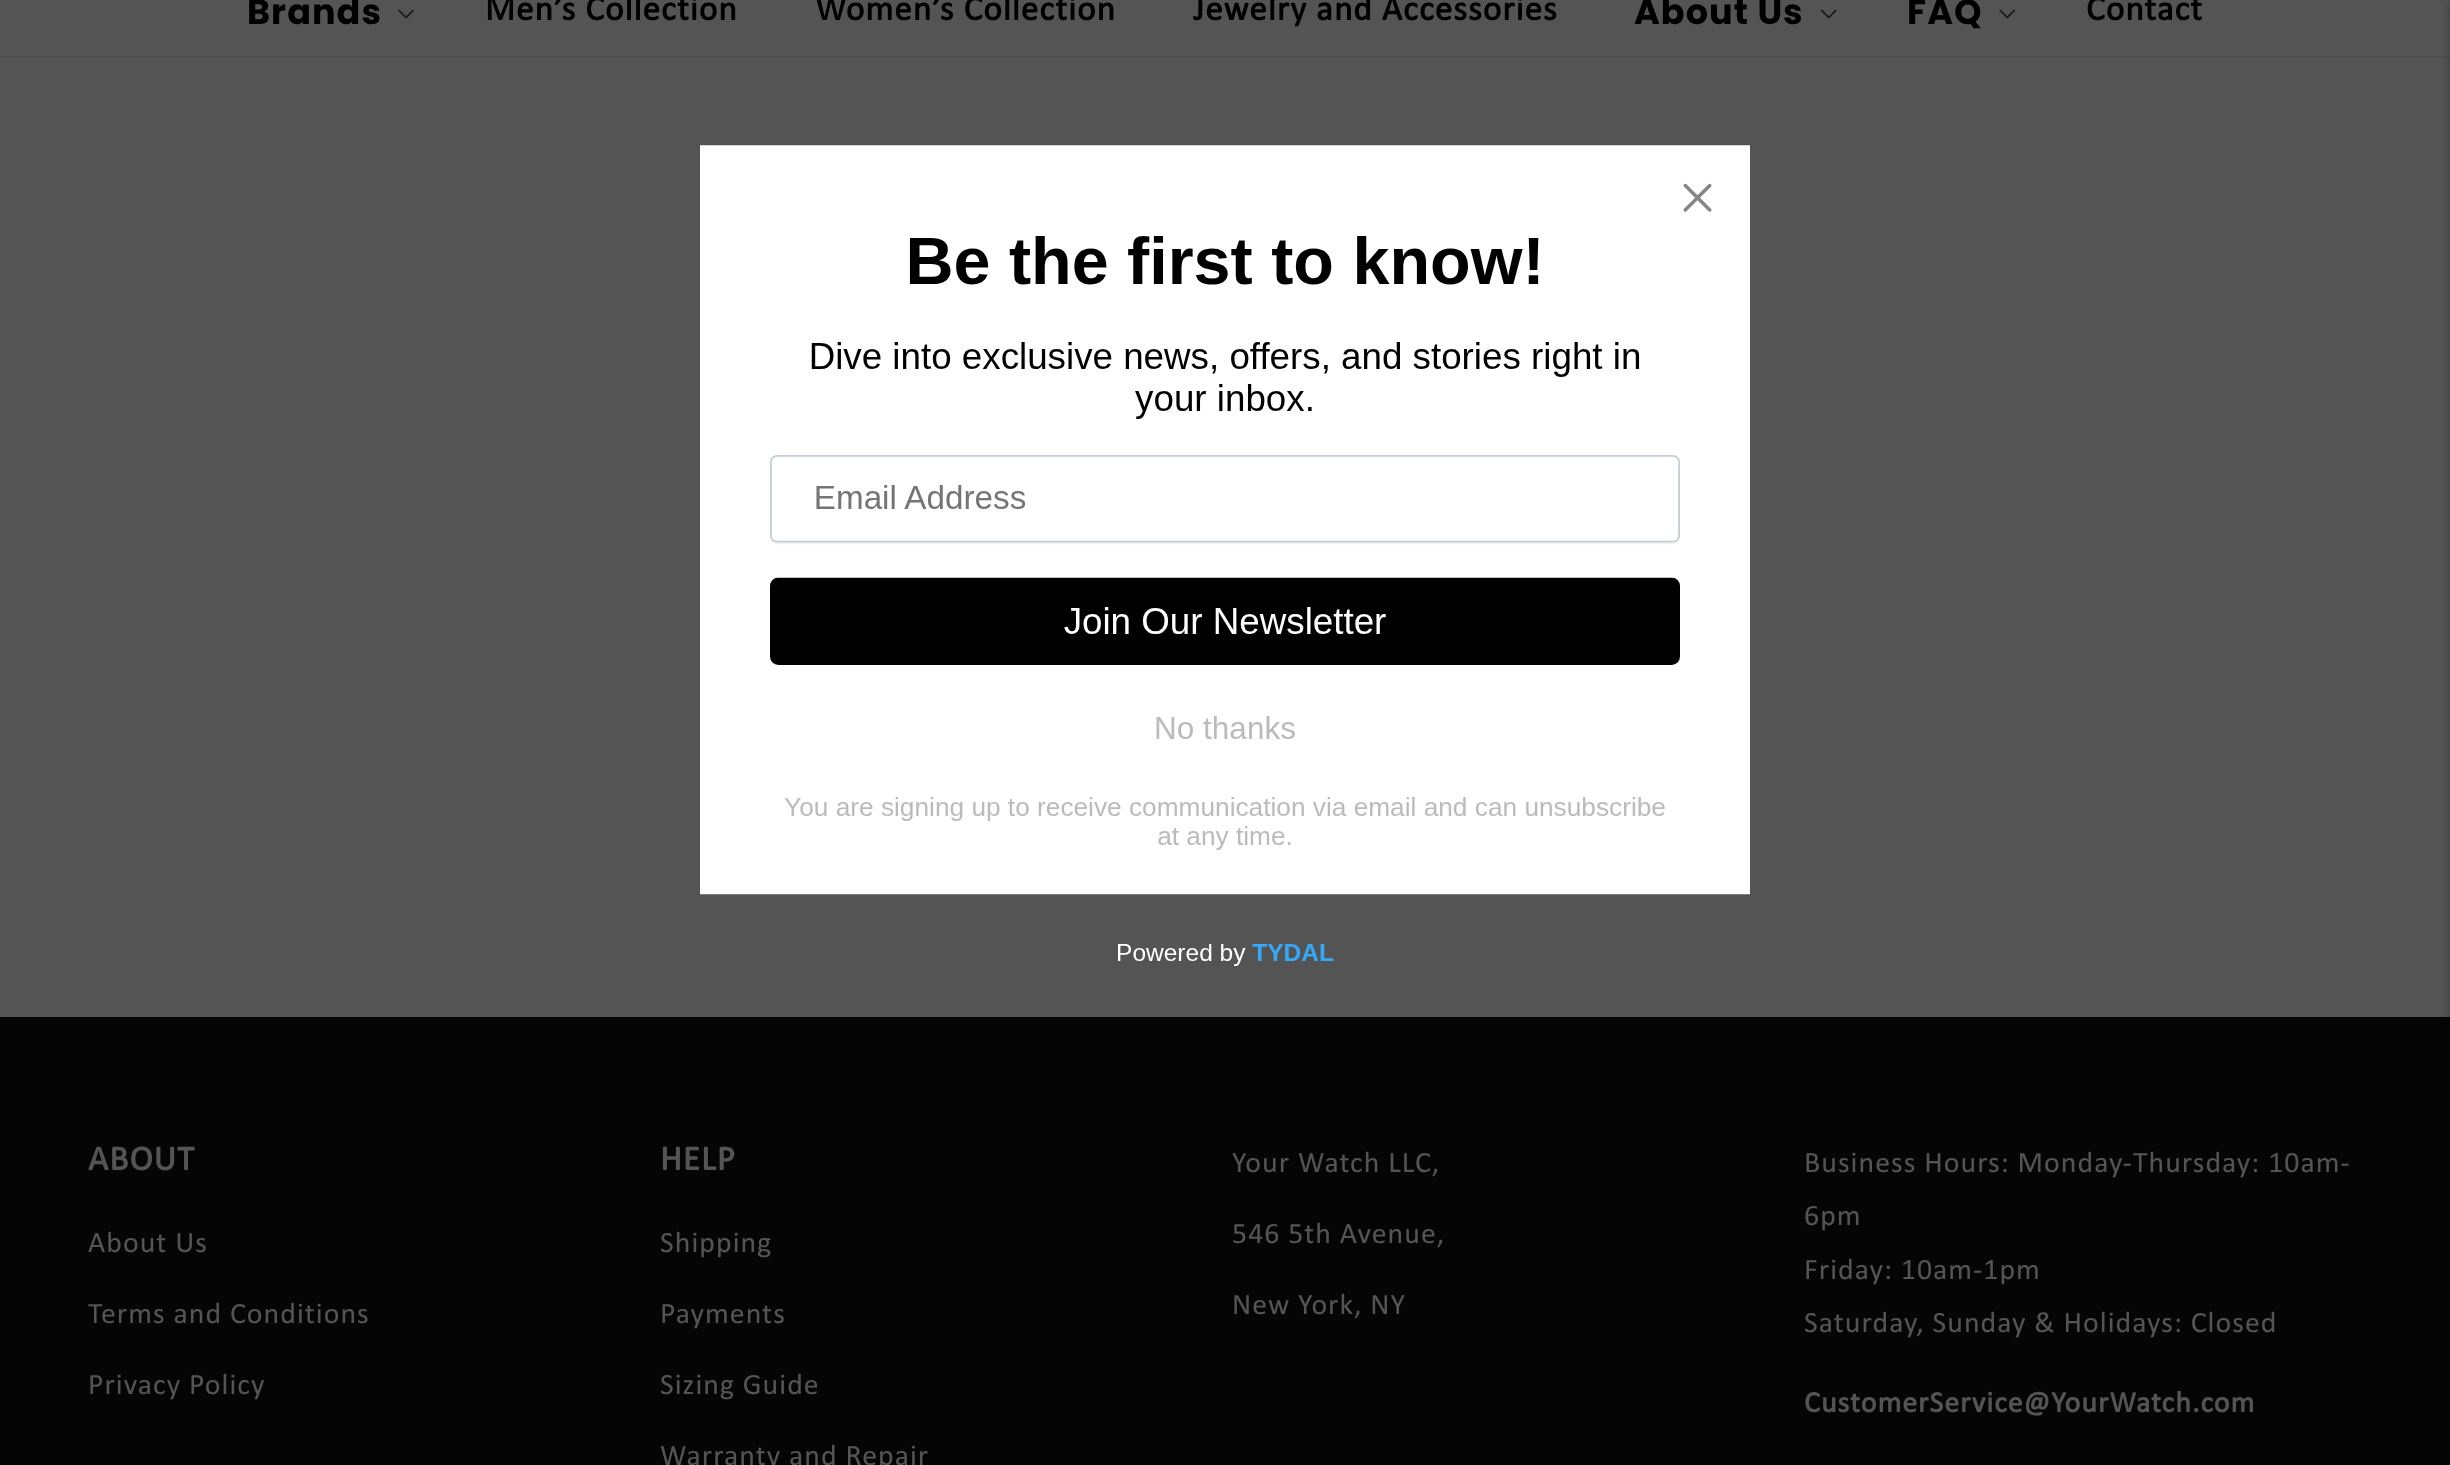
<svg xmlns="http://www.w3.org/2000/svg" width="2450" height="1465">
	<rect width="100%" height="100%" fill="#FFFFFF" />
	<rect x="0" y="56" width="2450" height="2" fill="#ECECEC" />
	<text x="247" y="24" font-family="Poppins" font-size="35" font-weight="700" letter-spacing="1.05" fill="#000000">Brands</text>
	<image x="398" y="9" width="16" height="10" href="assets/img2.png" />
	<g font-family="Calibri" font-size="35" font-weight="700" letter-spacing="1.05" fill="#000000">
		<text x="485" y="20">Men’s Collection</text>
		<text x="815" y="20">Women’s Collection</text>
		<text x="1193" y="20">Jewelry and Accessories</text>
	</g>
	<text x="1634" y="24" font-family="Poppins" font-size="35" font-weight="700" letter-spacing="1.05" fill="#000000">About Us</text>
	<image x="1820" y="9" width="17" height="10" href="assets/img3.png" />
	<text x="1907" y="24" font-family="Poppins" font-size="35" font-weight="700" letter-spacing="1.05" fill="#000000">FAQ</text>
	<image x="1999" y="9" width="17" height="10" href="assets/img4.png" />
	<text x="2086" y="20" font-family="Calibri" font-size="35" font-weight="700" letter-spacing="1.05" fill="#000000">Contact</text>
	<rect x="0" y="1017" width="2450" height="448" fill="#121212" />
	<rect x="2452" y="0" width="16" height="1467" fill="#000000" fill-opacity="0.5" filter="blur(6px)" />
	<text x="88" y="1170" font-family="Calibri" font-size="35" font-weight="700" letter-spacing="1.05" fill="#FFFFFF">ABOUT</text>
	<g font-family="Calibri" font-size="29.75" letter-spacing="1.05" fill="#FFFFFF">
		<text x="88" y="1252">About Us</text>
		<text x="88" y="1323">Terms and Conditions</text>
		<text x="88" y="1394">Privacy Policy</text>
	</g>
	<text x="660" y="1170" font-family="Calibri" font-size="35" font-weight="700" letter-spacing="1.05" fill="#FFFFFF">HELP</text>
	<g font-family="Calibri" font-size="29.75" letter-spacing="1.05" fill="#FFFFFF">
		<text x="660" y="1252">Shipping</text>
		<text x="660" y="1323">Payments</text>
		<text x="660" y="1394">Sizing Guide</text>
		<text x="660" y="1465">Warranty and Repair</text>
		<text x="1232" y="1172">Your Watch LLC,</text>
		<text x="1232" y="1243">546 5th Avenue,</text>
		<text x="1232" y="1314">New York, NY</text>
		<text x="1804" y="1172">Business Hours: Monday-Thursday: 10am-</text>
		<text x="1804" y="1225">6pm</text>
		<text x="1804" y="1279">Friday: 10am-1pm</text>
		<text x="1804" y="1332">Saturday, Sunday &amp; Holidays: Closed</text>
	</g>
	<text x="1804" y="1412" font-family="Calibri" font-size="29.75" font-weight="700" letter-spacing="1.05" fill="#FFFFFF">CustomerService@YourWatch.com</text>
	<image x="0" y="0" width="2450" height="1465" href="assets/img1.png" />
</svg>
